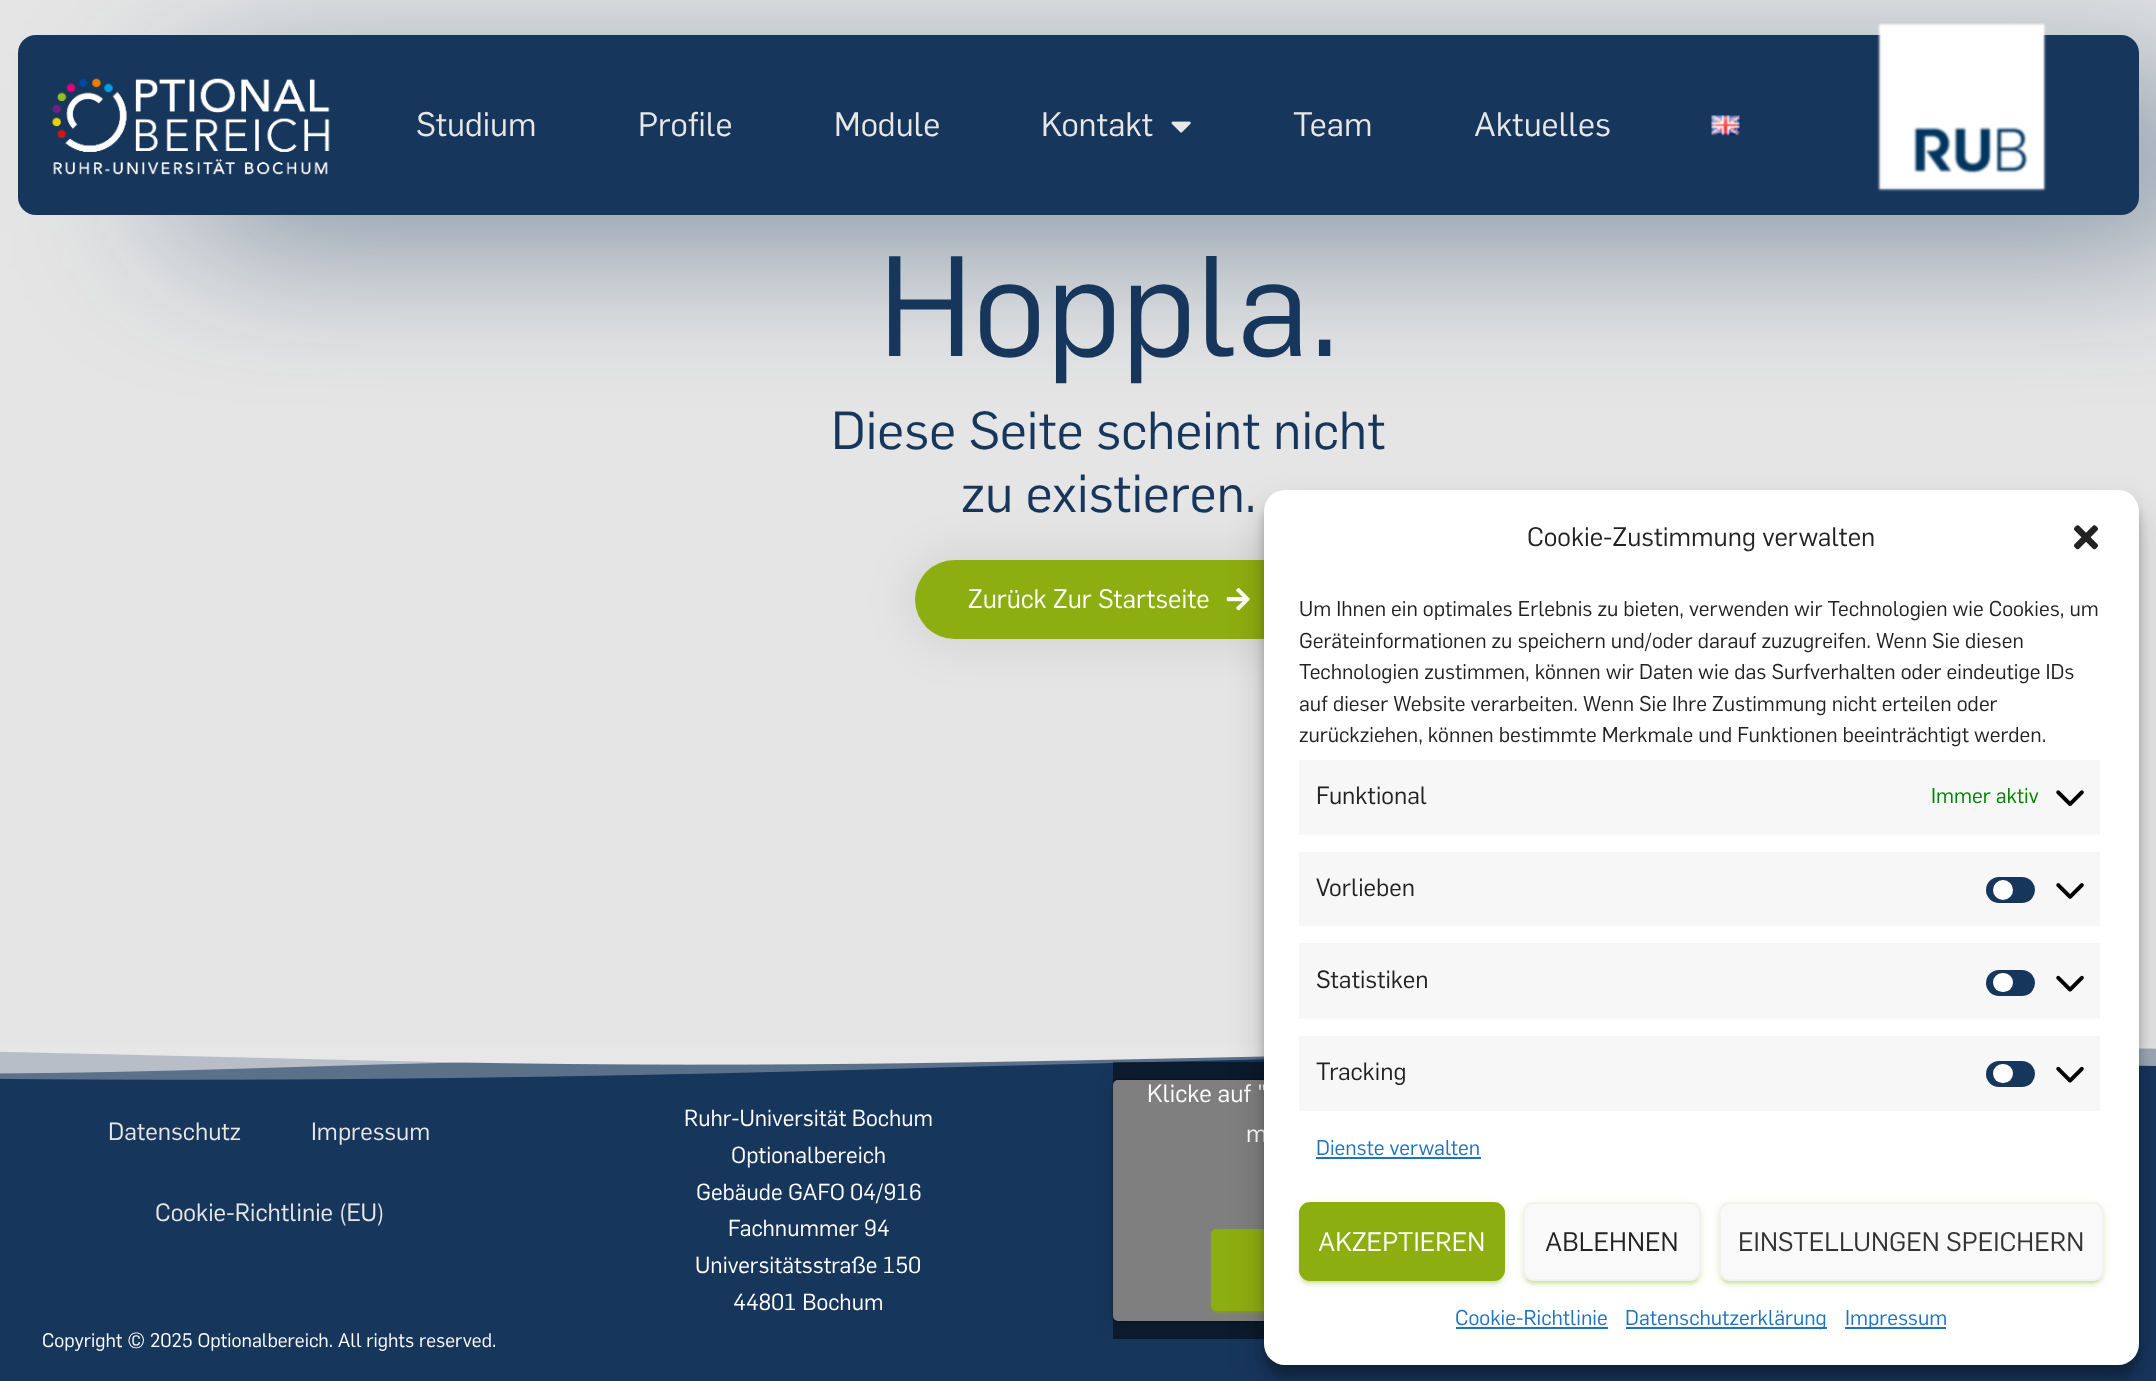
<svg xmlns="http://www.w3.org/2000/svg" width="2156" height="1381">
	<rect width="100%" height="100%" fill="#E5E5E5" />
	<rect x="193" y="123" width="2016" height="75" fill="#032A53" filter="blur(87.5px)" />
	<rect x="18" y="35" width="2121" height="180" rx="18" fill="#17365C" />
	<image x="52" y="78" width="278" height="97" href="assets/img1.png" />
	<g font-family="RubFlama" font-size="33.25" fill="#E7E7E7">
		<text x="416" y="136">Studium</text>
		<text x="638" y="136">Profile</text>
		<text x="834" y="136">Module</text>
		<text x="1041" y="136">Kontakt</text>
	</g>
	<image x="1171" y="121" width="20" height="12" href="assets/img2.png" />
	<g font-family="RubFlama" font-size="33.25" fill="#E7E7E7">
		<text x="1293" y="136">Team</text>
		<text x="1474" y="136">Aktuelles</text>
	</g>
	<image x="1711" y="115" width="29" height="21" href="assets/img3.png" />
	<image x="1877" y="23" width="170" height="169" href="assets/img4.png" />
	<text x="878" y="356" font-family="RubFlama" font-size="140" fill="#17365C">Hoppla.</text>
	<g font-family="RubFlama" font-size="52.5" fill="#17365C">
		<text x="831" y="449">Diese Seite scheint nicht</text>
		<text x="961" y="512">zu existieren.</text>
	</g>
	<rect x="915" y="560" width="387" height="79" rx="39.5" fill="#000000" fill-opacity="0.1" filter="blur(26px)" />
	<rect x="915" y="560" width="387" height="79" rx="39.5" fill="#8DAE10" />
	<text x="968" y="608" font-family="RubFlama" font-size="26.25" fill="#FFFFFF">Zurück Zur Startseite</text>
	<image x="1226" y="588" width="24" height="23" href="assets/img5.png" />
	<rect x="0" y="1048" width="2156" height="333" fill="#17365C" />
	<image x="0" y="1045" width="2156" height="35" href="assets/img6.png" />
	<g font-family="RubFlama" font-size="24.5" fill="#E7E7E7">
		<text x="108" y="1140">Datenschutz</text>
		<text x="311" y="1140">Impressum</text>
		<text x="155" y="1221">Cookie-Richtlinie (EU)</text>
	</g>
	<text x="42" y="1347" font-family="RubFlama" font-size="19.25" fill="#FFFFFF">Copyright © 2025 Optionalbereich. All rights reserved.</text>
	<g font-family="RubFlama" font-size="22.75" fill="#FFFFFF">
		<text x="684" y="1126">Ruhr-Universität Bochum</text>
		<text x="731" y="1163">Optionalbereich</text>
		<text x="696" y="1200">Gebäude GAFO 04/916</text>
		<text x="728" y="1236">Fachnummer 94</text>
		<text x="695" y="1273">Universitätsstraße 150</text>
		<text x="733" y="1310">44801 Bochum</text>
	</g>
	<rect x="1113" y="1082" width="469" height="241" rx="5" fill="#000000" fill-opacity="0.15" filter="blur(9px)" />
	<rect x="1113" y="1080" width="469" height="241" rx="5" fill="#000000" fill-opacity="0.5" filter="blur(1px)" />
	<rect x="1113" y="1080" width="469" height="241" rx="5" fill="#FFFFFF" />
	<rect x="1113" y="1062" width="151" height="277" fill="#000000" fill-opacity="0.5" />
	<g font-family="RubFlama" font-size="24.5" fill="#FFFFFF">
		<text x="1147" y="1102">Klicke auf "</text>
		<text x="1246" y="1142">m</text>
	</g>
	<rect x="1211" y="1230" width="273" height="83" rx="5" fill="#8DAE10" fill-opacity="0.12" filter="blur(4.5px)" />
	<rect x="1215" y="1237" width="266" height="76" rx="2" fill="#8DAE10" fill-opacity="0.2" filter="blur(1px)" />
	<rect x="1211" y="1232" width="273" height="82" rx="5" fill="#8DAE10" fill-opacity="0.14" filter="blur(2px)" />
	<rect x="1211" y="1229" width="273" height="82" rx="5" fill="#8DAE10" />
	<rect x="1264" y="501" width="875" height="875" rx="21" fill="#000000" fill-opacity="0.23" filter="blur(5px)" />
	<rect x="1264" y="508" width="875" height="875" rx="21" fill="#000000" fill-opacity="0.19" filter="blur(17.5px)" />
	<rect x="1264" y="490" width="875" height="875" rx="21" fill="#FFFFFF" />
	<text x="1527" y="546" font-family="RubFlama" font-size="26.25" fill="#222222">Cookie-Zustimmung verwalten</text>
	<image x="2074" y="525" width="24" height="25" href="assets/img7.png" />
	<g font-family="RubFlama" font-size="21" fill="#222222">
		<text x="1299" y="616">Um Ihnen ein optimales Erlebnis zu bieten, verwenden wir Technologien wie Cookies, um</text>
		<text x="1299" y="648">Geräteinformationen zu speichern und/oder darauf zuzugreifen. Wenn Sie diesen</text>
		<text x="1299" y="679">Technologien zustimmen, können wir Daten wie das Surfverhalten oder eindeutige IDs</text>
		<text x="1299" y="711">auf dieser Website verarbeiten. Wenn Sie Ihre Zustimmung nicht erteilen oder</text>
		<text x="1299" y="742">zurückziehen, können bestimmte Merkmale und Funktionen beeinträchtigt werden.</text>
	</g>
	<rect x="1299" y="760" width="801" height="75" fill="#F7F7F7" />
	<text x="1316" y="804" font-family="RubFlama" font-size="24.5" fill="#222222">Funktional</text>
	<text x="1931" y="803" font-family="RubFlama" font-size="21" fill="#008000">Immer aktiv</text>
	<image x="2056" y="790" width="28" height="17" href="assets/img8.png" />
	<rect x="1299" y="852" width="801" height="74" fill="#F7F7F7" />
	<text x="1316" y="896" font-family="RubFlama" font-size="24.5" fill="#222222">Vorlieben</text>
	<rect x="1986" y="877" width="49" height="26" rx="13" fill="#17365C" />
	<circle cx="2003" cy="890" r="10" fill="#FFFFFF" />
	<image x="2056" y="883" width="28" height="16" href="assets/img9.png" />
	<rect x="1299" y="943" width="801" height="76" fill="#F7F7F7" />
	<text x="1316" y="988" font-family="RubFlama" font-size="24.5" fill="#222222">Statistiken</text>
	<rect x="1986" y="970" width="49" height="26" rx="13" fill="#17365C" />
	<rect x="1993" y="973" width="20" height="19" rx="9.5" fill="#FFFFFF" />
	<image x="2056" y="975" width="28" height="17" href="assets/img10.png" />
	<rect x="1299" y="1036" width="801" height="75" fill="#F7F7F7" />
	<text x="1316" y="1080" font-family="RubFlama" font-size="24.5" fill="#222222">Tracking</text>
	<rect x="1986" y="1061" width="49" height="26" rx="13" fill="#17365C" />
	<rect x="1993" y="1064" width="20" height="19" rx="9.5" fill="#FFFFFF" />
	<image x="2056" y="1066" width="28" height="17" href="assets/img10.png" />
	<text x="1316" y="1155" font-family="RubFlama" font-size="21" fill="#1E73BE">Dienste verwalten</text>
	<rect x="1316" y="1157" width="165" height="2" fill="#1E73BE" />
	<rect x="1299" y="1204" width="206" height="79" rx="11" fill="#8DAE10" fill-opacity="0.12" filter="blur(4.5px)" />
	<rect x="1302" y="1211" width="200" height="72" rx="7" fill="#8DAE10" fill-opacity="0.2" filter="blur(1px)" />
	<rect x="1299" y="1206" width="206" height="79" rx="11" fill="#8DAE10" fill-opacity="0.14" filter="blur(2px)" />
	<rect x="1300" y="1203" width="204" height="77" rx="10" fill="#8DAE10" stroke="#8DAE10" stroke-width="2" />
	<text x="1318" y="1251" font-family="RubFlama" font-size="26.25" fill="#FFFFFF">AKZEPTIEREN</text>
	<rect x="1523" y="1204" width="178" height="79" rx="11" fill="#8DAE10" fill-opacity="0.12" filter="blur(4.5px)" />
	<rect x="1526" y="1211" width="172" height="72" rx="7" fill="#8DAE10" fill-opacity="0.2" filter="blur(1px)" />
	<rect x="1523" y="1206" width="178" height="79" rx="11" fill="#8DAE10" fill-opacity="0.14" filter="blur(2px)" />
	<rect x="1524" y="1203" width="176" height="77" rx="10" fill="#F9F9F9" stroke="#F2F2F2" stroke-width="2" />
	<text x="1545" y="1251" font-family="RubFlama" font-size="26.25" fill="#222222">ABLEHNEN</text>
	<rect x="1719" y="1204" width="385" height="79" rx="11" fill="#8DAE10" fill-opacity="0.12" filter="blur(4.5px)" />
	<rect x="1722" y="1211" width="378" height="72" rx="7" fill="#8DAE10" fill-opacity="0.2" filter="blur(1px)" />
	<rect x="1719" y="1206" width="385" height="79" rx="11" fill="#8DAE10" fill-opacity="0.14" filter="blur(2px)" />
	<rect x="1720" y="1203" width="383" height="77" rx="10" fill="#F9F9F9" stroke="#F2F2F2" stroke-width="2" />
	<text x="1738" y="1251" font-family="RubFlama" font-size="26.25" fill="#333333">EINSTELLUNGEN SPEICHERN</text>
	<text x="1455" y="1325" font-family="RubFlama" font-size="21" fill="#1E73BE">Cookie-Richtlinie</text>
	<rect x="1456" y="1327" width="152" height="2" fill="#1E73BE" />
	<rect x="1626" y="1327" width="201" height="2" fill="#1E73BE" />
	<text x="1625" y="1325" font-family="RubFlama" font-size="21" fill="#1E73BE">Datenschutzerklärung</text>
	<rect x="1845" y="1327" width="101" height="2" fill="#1E73BE" />
	<text x="1845" y="1325" font-family="RubFlama" font-size="21" fill="#1E73BE">Impressum</text>
</svg>
